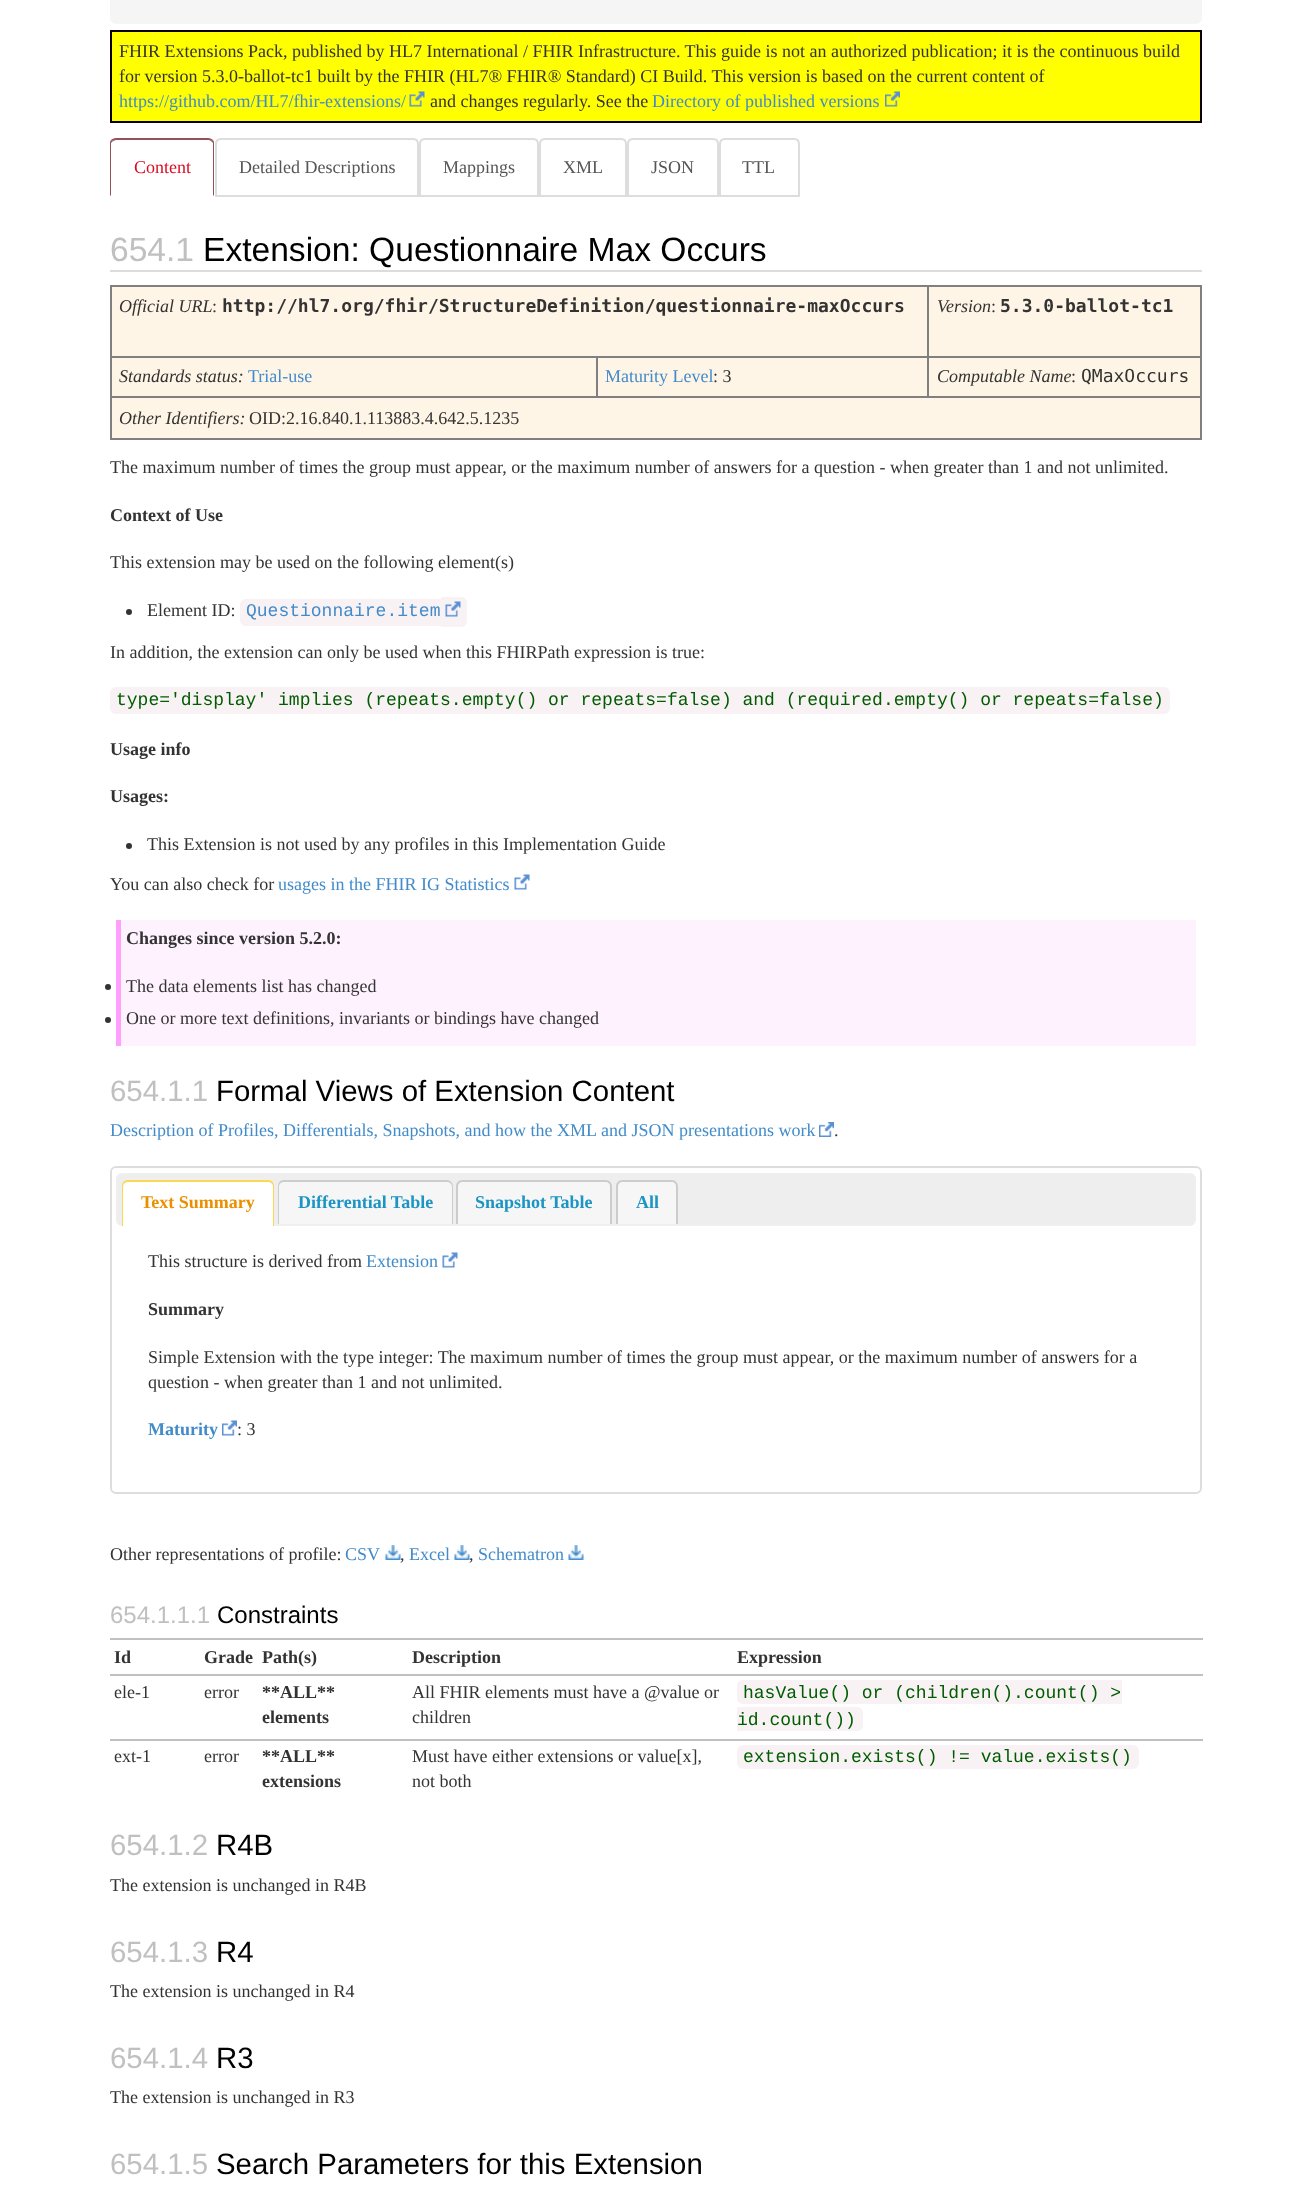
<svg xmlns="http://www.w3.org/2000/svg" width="1310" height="2203">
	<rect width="100%" height="100%" fill="#FFFFFF" />
	<rect x="110" y="-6" width="1092" height="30" rx="6" fill="#F5F5F5" />
	<rect x="111" y="31" width="1090" height="91" fill="#FFFF00" stroke="#0A0008" stroke-width="2" />
	<g font-family="Liberation Serif" font-size="18" fill="#333333">
		<text x="119" y="57">FHIR Extensions Pack, published by HL7 International / FHIR Infrastructure. This guide is not an authorized publication; it is the continuous build</text>
		<text x="119" y="82">for version 5.3.0-ballot-tc1 built by the FHIR (HL7® FHIR® Standard) CI Build. This version is based on the current content of</text>
	</g>
	<text x="119" y="107" font-family="Liberation Serif" font-size="18" fill="#428BCA">https://github.com/HL7/fhir-extensions/</text>
	<image x="409" y="91" width="16" height="16" href="assets/img1.png" />
	<text x="430" y="107" font-family="Liberation Serif" font-size="18" fill="#333333">and changes regularly. See the</text>
	<text x="652" y="107" font-family="Liberation Serif" font-size="18" fill="#428BCA">Directory of published versions</text>
	<image x="885" y="91" width="15" height="16" href="assets/img2.png" />
	<path d="M116 138C114 138 112 139 111 140L113 141L116 140H209L211 141L213 140C212 139 210 138 208 138Z" fill="#955159" />
	<path d="M213 140C214 141 214 143 214 144V196L213 195V143L211 141Z" fill="#955159" />
	<path d="M111 140C110 141 110 143 110 144V196L111 195V143L113 141Z" fill="#955159" />
	<text x="134" y="173" font-family="Liberation Serif" font-size="18" fill="#DA0C23">Content</text>
	<path d="M221 139H413C416 139 418 141 418 144V196H216V144C216 141 218 139 221 139Z" fill="none" stroke="#DDDDDD" stroke-width="2" />
	<text x="239" y="173" font-family="Liberation Serif" font-size="18" fill="#555555">Detailed Descriptions</text>
	<path d="M425 139H533C536 139 538 141 538 144V196H420V144C420 141 422 139 425 139Z" fill="none" stroke="#DDDDDD" stroke-width="2" />
	<text x="443" y="173" font-family="Liberation Serif" font-size="18" fill="#555555">Mappings</text>
	<path d="M545 139H621C624 139 626 141 626 144V196H540V144C540 141 542 139 545 139Z" fill="none" stroke="#DDDDDD" stroke-width="2" />
	<text x="563" y="173" font-family="Liberation Serif" font-size="18" fill="#555555">XML</text>
	<path d="M633 139H713C716 139 718 141 718 144V196H628V144C628 141 630 139 633 139Z" fill="none" stroke="#DDDDDD" stroke-width="2" />
	<text x="651" y="173" font-family="Liberation Serif" font-size="18" fill="#555555">JSON</text>
	<path d="M725 139H794C797 139 799 141 799 144V196H720V144C720 141 722 139 725 139Z" fill="none" stroke="#DDDDDD" stroke-width="2" />
	<text x="742" y="173" font-family="Liberation Serif" font-size="18" fill="#555555">TTL</text>
	<rect x="110" y="270" width="1092" height="2" fill="#DCDCDC" />
	<text x="110" y="261" font-family="Liberation Sans" font-size="33.6" fill="#C0C0C0">654.1</text>
	<text x="203" y="261" font-family="Liberation Sans" font-size="33.6" fill="#000000">Extension: Questionnaire Max Occurs</text>
	<rect x="112" y="287" width="815" height="69" fill="#FFF5E6" />
	<rect x="927" y="285" width="275" height="2" fill="#808080" />
	<rect x="927" y="356" width="275" height="2" fill="#808080" />
	<rect x="110" y="396" width="1092" height="2" fill="#808080" />
	<rect x="927" y="356" width="2" height="42" fill="#808080" />
	<rect x="596" y="356" width="333" height="2" fill="#808080" />
	<rect x="927" y="285" width="2" height="72" fill="#808080" />
	<rect x="110" y="285" width="819" height="2" fill="#808080" />
	<rect x="596" y="356" width="2" height="42" fill="#808080" />
	<rect x="110" y="356" width="487" height="2" fill="#808080" />
	<rect x="1200" y="396" width="2" height="44" fill="#808080" />
	<rect x="110" y="438" width="1092" height="2" fill="#808080" />
	<rect x="110" y="396" width="2" height="44" fill="#808080" />
	<rect x="110" y="356" width="2" height="42" fill="#808080" />
	<rect x="110" y="285" width="2" height="72" fill="#808080" />
	<text x="119" y="312" font-family="Liberation Serif" font-size="18" font-style="italic" fill="#333333">Official URL</text>
	<text x="212" y="312" font-family="Liberation Serif" font-size="18" fill="#333333">:</text>
	<text x="222" y="312" font-family="DejaVu Sans Mono" font-size="18" font-weight="700" fill="#333333">http://hl7.org/fhir/StructureDefinition/questionnaire-maxOccurs</text>
	<rect x="929" y="287" width="271" height="69" fill="#FFF5E6" />
	<rect x="1200" y="356" width="2" height="42" fill="#808080" />
	<rect x="1200" y="285" width="2" height="72" fill="#808080" />
	<text x="937" y="312" font-family="Liberation Serif" font-size="18" font-style="italic" fill="#333333">Version</text>
	<text x="991" y="312" font-family="Liberation Serif" font-size="18" fill="#333333">:</text>
	<text x="1000" y="312" font-family="DejaVu Sans Mono" font-size="18" font-weight="700" fill="#333333">5.3.0-ballot-tc1</text>
	<rect x="112" y="358" width="484" height="38" fill="#FFF5E6" />
	<text x="119" y="382" font-family="Liberation Serif" font-size="18" font-style="italic" fill="#333333">Standards status:</text>
	<text x="248" y="382" font-family="Liberation Serif" font-size="18" fill="#428BCA">Trial-use</text>
	<rect x="598" y="358" width="329" height="38" fill="#FFF5E6" />
	<text x="605" y="382" font-family="Liberation Serif" font-size="18" fill="#428BCA">Maturity Level</text>
	<text x="713" y="382" font-family="Liberation Serif" font-size="18" fill="#333333">: 3</text>
	<rect x="929" y="358" width="271" height="38" fill="#FFF5E6" />
	<text x="937" y="382" font-family="Liberation Serif" font-size="18" font-style="italic" fill="#333333">Computable Name</text>
	<text x="1071" y="382" font-family="Liberation Serif" font-size="18" fill="#333333">:</text>
	<text x="1081" y="382" font-family="DejaVu Sans Mono" font-size="18" fill="#333333">QMaxOccurs</text>
	<rect x="112" y="398" width="1088" height="40" fill="#FFF5E6" />
	<text x="119" y="424" font-family="Liberation Serif" font-size="18" font-style="italic" fill="#333333">Other Identifiers:</text>
	<g font-family="Liberation Serif" font-size="18" fill="#333333">
		<text x="249" y="424">OID:2.16.840.1.113883.4.642.5.1235</text>
		<text x="110" y="473">The maximum number of times the group must appear, or the maximum number of answers for a question - when greater than 1 and not unlimited.</text>
	</g>
	<text x="110" y="521" font-family="Liberation Serif" font-size="18" font-weight="700" fill="#333333">Context of Use</text>
	<text x="110" y="568" font-family="Liberation Serif" font-size="18" fill="#333333">This extension may be used on the following element(s)</text>
	<circle cx="129" cy="612" r="3" fill="#333333" />
	<text x="147" y="616" font-family="Liberation Serif" font-size="18" fill="#333333">Element ID:</text>
	<path d="M246 599H441V626H246C242.5 626 240 623.5 240 620V605C240 601.5 242.5 599 246 599Z" fill="#F9F2F4" />
	<path d="M441 597H461C464.5 597 467 599.5 467 603V621C467 624.5 464.5 627 461 627H441Z" fill="#F9F2F4" />
	<text x="246" y="616" font-family="Liberation Mono" font-size="18" fill="#428BCA">Questionnaire.item</text>
	<image x="445" y="601" width="16" height="16" href="assets/img3.png" />
	<text x="110" y="658" font-family="Liberation Serif" font-size="18" fill="#333333">In addition, the extension can only be used when this FHIRPath expression is true:</text>
	<rect x="110" y="687" width="1060" height="27" rx="6" fill="#F9F2F4" />
	<text x="116" y="705" font-family="Liberation Mono" font-size="18" fill="#005C00">type='display' implies (repeats.empty() or repeats=false) and (required.empty() or repeats=false)</text>
	<g font-family="Liberation Serif" font-size="18" font-weight="700" fill="#333333">
		<text x="110" y="755">Usage info</text>
		<text x="110" y="802">Usages:</text>
	</g>
	<circle cx="129" cy="846" r="3" fill="#333333" />
	<g font-family="Liberation Serif" font-size="18" fill="#333333">
		<text x="147" y="850">This Extension is not used by any profiles in this Implementation Guide</text>
		<text x="110" y="890">You can also check for</text>
	</g>
	<text x="278" y="890" font-family="Liberation Serif" font-size="18" fill="#428BCA">usages in the FHIR IG Statistics</text>
	<image x="514" y="874" width="16" height="16" href="assets/img4.png" />
	<rect x="121" y="920" width="1075" height="126" fill="#FFF2FF" />
	<rect x="116" y="920" width="5" height="126" fill="#FFA0FF" />
	<text x="126" y="944" font-family="Liberation Serif" font-size="18" font-weight="700" fill="#333333">Changes since version 5.2.0:</text>
	<circle cx="108" cy="987" r="3" fill="#333333" />
	<text x="126" y="992" font-family="Liberation Serif" font-size="18" fill="#333333">The data elements list has changed</text>
	<circle cx="108" cy="1020" r="3" fill="#333333" />
	<text x="126" y="1024" font-family="Liberation Serif" font-size="18" fill="#333333">One or more text definitions, invariants or bindings have changed</text>
	<text x="110" y="1101" font-family="Liberation Sans" font-size="29.4" fill="#C0C0C0">654.1.1</text>
	<text x="216" y="1101" font-family="Liberation Sans" font-size="29.4" fill="#000000">Formal Views of Extension Content</text>
	<text x="110" y="1136" font-family="Liberation Serif" font-size="18" fill="#428BCA">Description of Profiles, Differentials, Snapshots, and how the XML and JSON presentations work</text>
	<image x="819" y="1122" width="15" height="15" href="assets/img5.png" />
	<text x="834" y="1136" font-family="Liberation Serif" font-size="18" fill="#333333">.</text>
	<rect x="111" y="1167" width="1090" height="326" rx="5" fill="none" stroke="#DDDDDD" stroke-width="2" />
	<rect x="117" y="1174" width="1078" height="51" rx="5" fill="#EEEEEE" stroke="#EFEFEF" stroke-width="2" />
	<path d="M128 1182H268C271 1182 273 1184 273 1187V1226H123V1187C123 1184 125 1182 128 1182Z" fill="#FFFFFF" />
	<path d="M128 1180H268C272 1180 274 1183 274 1186V1226H122V1186C122 1183 124 1180 128 1180ZM128 1182H268C271 1182 273 1184 273 1186V1226H123V1186C123 1184 125 1182 128 1182Z" fill="#FBD850" fill-rule="evenodd" />
	<text x="141" y="1208" font-family="Liberation Serif" font-size="18" font-weight="700" fill="#EB8F00">Text Summary</text>
	<path d="M284 1182H447C450 1182 452 1184 452 1187V1224H279V1187C279 1184 281 1182 284 1182Z" fill="#F6F6F6" />
	<path d="M284 1180H447C450 1180 453 1183 453 1186V1224H278V1186C278 1183 280 1180 284 1180ZM284 1182H447C449 1182 452 1184 452 1186V1224H279V1186C279 1184 281 1182 284 1182Z" fill="#CCCCCC" fill-rule="evenodd" />
	<text x="298" y="1208" font-family="Liberation Serif" font-size="18" font-weight="700" fill="#1C94C4">Differential Table</text>
	<path d="M463 1182H606C609 1182 611 1184 611 1187V1224H458V1187C458 1184 460 1182 463 1182Z" fill="#F6F6F6" />
	<path d="M462 1180H606C609 1180 612 1183 612 1186V1224H456V1186C456 1183 459 1180 462 1180ZM462 1182H606C608 1182 610 1184 610 1186V1224H458V1186C458 1184 460 1182 462 1182Z" fill="#CCCCCC" fill-rule="evenodd" />
	<text x="475" y="1208" font-family="Liberation Serif" font-size="18" font-weight="700" fill="#1C94C4">Snapshot Table</text>
	<path d="M623 1182H672C675 1182 677 1184 677 1187V1224H618V1187C618 1184 620 1182 623 1182Z" fill="#F6F6F6" />
	<path d="M622 1180H672C675 1180 678 1183 678 1186V1224H616V1186C616 1183 619 1180 622 1180ZM622 1182H672C674 1182 676 1184 676 1186V1224H618V1186C618 1184 620 1182 622 1182Z" fill="#CCCCCC" fill-rule="evenodd" />
	<text x="636" y="1208" font-family="Liberation Serif" font-size="18" font-weight="700" fill="#1C94C4">All</text>
	<text x="148" y="1267" font-family="Liberation Serif" font-size="18" fill="#333333">This structure is derived from</text>
	<text x="366" y="1267" font-family="Liberation Serif" font-size="18" fill="#428BCA">Extension</text>
	<image x="442" y="1252" width="16" height="16" href="assets/img6.png" />
	<text x="148" y="1315" font-family="Liberation Serif" font-size="18" font-weight="700" fill="#333333">Summary</text>
	<g font-family="Liberation Serif" font-size="18" fill="#333333">
		<text x="148" y="1363">Simple Extension with the type integer: The maximum number of times the group must appear, or the maximum number of answers for a</text>
		<text x="148" y="1388">question - when greater than 1 and not unlimited.</text>
	</g>
	<text x="148" y="1435" font-family="Liberation Serif" font-size="18" font-weight="700" fill="#428BCA">Maturity</text>
	<image x="222" y="1420" width="15" height="16" href="assets/img7.png" />
	<g font-family="Liberation Serif" font-size="18" fill="#333333">
		<text x="237" y="1435">: 3</text>
		<text x="110" y="1560">Other representations of profile:</text>
	</g>
	<text x="345" y="1560" font-family="Liberation Serif" font-size="18" fill="#428BCA">CSV</text>
	<image x="385" y="1545" width="16" height="15" href="assets/img8.png" />
	<text x="400" y="1560" font-family="Liberation Serif" font-size="18" fill="#333333">,</text>
	<text x="409" y="1560" font-family="Liberation Serif" font-size="18" fill="#428BCA">Excel</text>
	<image x="454" y="1545" width="16" height="15" href="assets/img9.png" />
	<text x="469" y="1560" font-family="Liberation Serif" font-size="18" fill="#333333">,</text>
	<text x="478" y="1560" font-family="Liberation Serif" font-size="18" fill="#428BCA">Schematron</text>
	<image x="568" y="1545" width="16" height="15" href="assets/img8.png" />
	<text x="110" y="1623" font-family="Liberation Sans" font-size="24" fill="#C0C0C0">654.1.1.1</text>
	<text x="217" y="1623" font-family="Liberation Sans" font-size="24" fill="#000000">Constraints</text>
	<g font-family="Liberation Serif" font-size="18" font-weight="700" fill="#333333">
		<text x="114" y="1663">Id</text>
		<text x="204" y="1663">Grade</text>
		<text x="262" y="1663">Path(s)</text>
		<text x="412" y="1663">Description</text>
	</g>
	<rect x="110" y="1638" width="1093" height="2" fill="#C0C0C0" />
	<text x="737" y="1663" font-family="Liberation Serif" font-size="18" font-weight="700" fill="#333333">Expression</text>
	<g font-family="Liberation Serif" font-size="18" fill="#333333">
		<text x="114" y="1698">ele-1</text>
		<text x="204" y="1698">error</text>
	</g>
	<g font-family="Liberation Serif" font-size="18" font-weight="700" fill="#333333">
		<text x="262" y="1698">**ALL**</text>
		<text x="262" y="1723">elements</text>
	</g>
	<g font-family="Liberation Serif" font-size="18" fill="#333333">
		<text x="412" y="1698">All FHIR elements must have a @value or</text>
		<text x="412" y="1723">children</text>
	</g>
	<rect x="110" y="1674" width="1093" height="2" fill="#C0C0C0" />
	<path d="M743 1680H1122V1704H743C739.5 1704 737 1701.5 737 1698V1686C737 1682.5 739.5 1680 743 1680Z" fill="#F9F2F4" />
	<text x="743" y="1698" font-family="Liberation Mono" font-size="18" fill="#005C00">hasValue() or (children().count() &gt;</text>
	<path d="M737 1707H857C860.5 1707 863 1709.5 863 1713V1725C863 1728.5 860.5 1731 857 1731H737Z" fill="#F9F2F4" />
	<text x="737" y="1725" font-family="Liberation Mono" font-size="18" fill="#005C00">id.count())</text>
	<g font-family="Liberation Serif" font-size="18" fill="#333333">
		<text x="114" y="1762">ext-1</text>
		<text x="204" y="1762">error</text>
	</g>
	<g font-family="Liberation Serif" font-size="18" font-weight="700" fill="#333333">
		<text x="262" y="1762">**ALL**</text>
		<text x="262" y="1787">extensions</text>
	</g>
	<g font-family="Liberation Serif" font-size="18" fill="#333333">
		<text x="412" y="1762">Must have either extensions or value[x],</text>
		<text x="412" y="1787">not both</text>
	</g>
	<rect x="110" y="1739" width="1093" height="2" fill="#C0C0C0" />
	<rect x="737" y="1745" width="402" height="24" rx="6" fill="#F9F2F4" />
	<text x="743" y="1762" font-family="Liberation Mono" font-size="18" fill="#005C00">extension.exists() != value.exists()</text>
	<text x="110" y="1855" font-family="Liberation Sans" font-size="29.4" fill="#C0C0C0">654.1.2</text>
	<text x="216" y="1855" font-family="Liberation Sans" font-size="29.4" fill="#000000">R4B</text>
	<text x="110" y="1891" font-family="Liberation Serif" font-size="18" fill="#333333">The extension is unchanged in R4B</text>
	<text x="110" y="1962" font-family="Liberation Sans" font-size="29.4" fill="#C0C0C0">654.1.3</text>
	<text x="216" y="1962" font-family="Liberation Sans" font-size="29.4" fill="#000000">R4</text>
	<text x="110" y="1997" font-family="Liberation Serif" font-size="18" fill="#333333">The extension is unchanged in R4</text>
	<text x="110" y="2068" font-family="Liberation Sans" font-size="29.4" fill="#C0C0C0">654.1.4</text>
	<text x="216" y="2068" font-family="Liberation Sans" font-size="29.4" fill="#000000">R3</text>
	<text x="110" y="2103" font-family="Liberation Serif" font-size="18" fill="#333333">The extension is unchanged in R3</text>
	<text x="110" y="2174" font-family="Liberation Sans" font-size="29.4" fill="#C0C0C0">654.1.5</text>
	<text x="216" y="2174" font-family="Liberation Sans" font-size="29.4" fill="#000000">Search Parameters for this Extension</text>
</svg>
